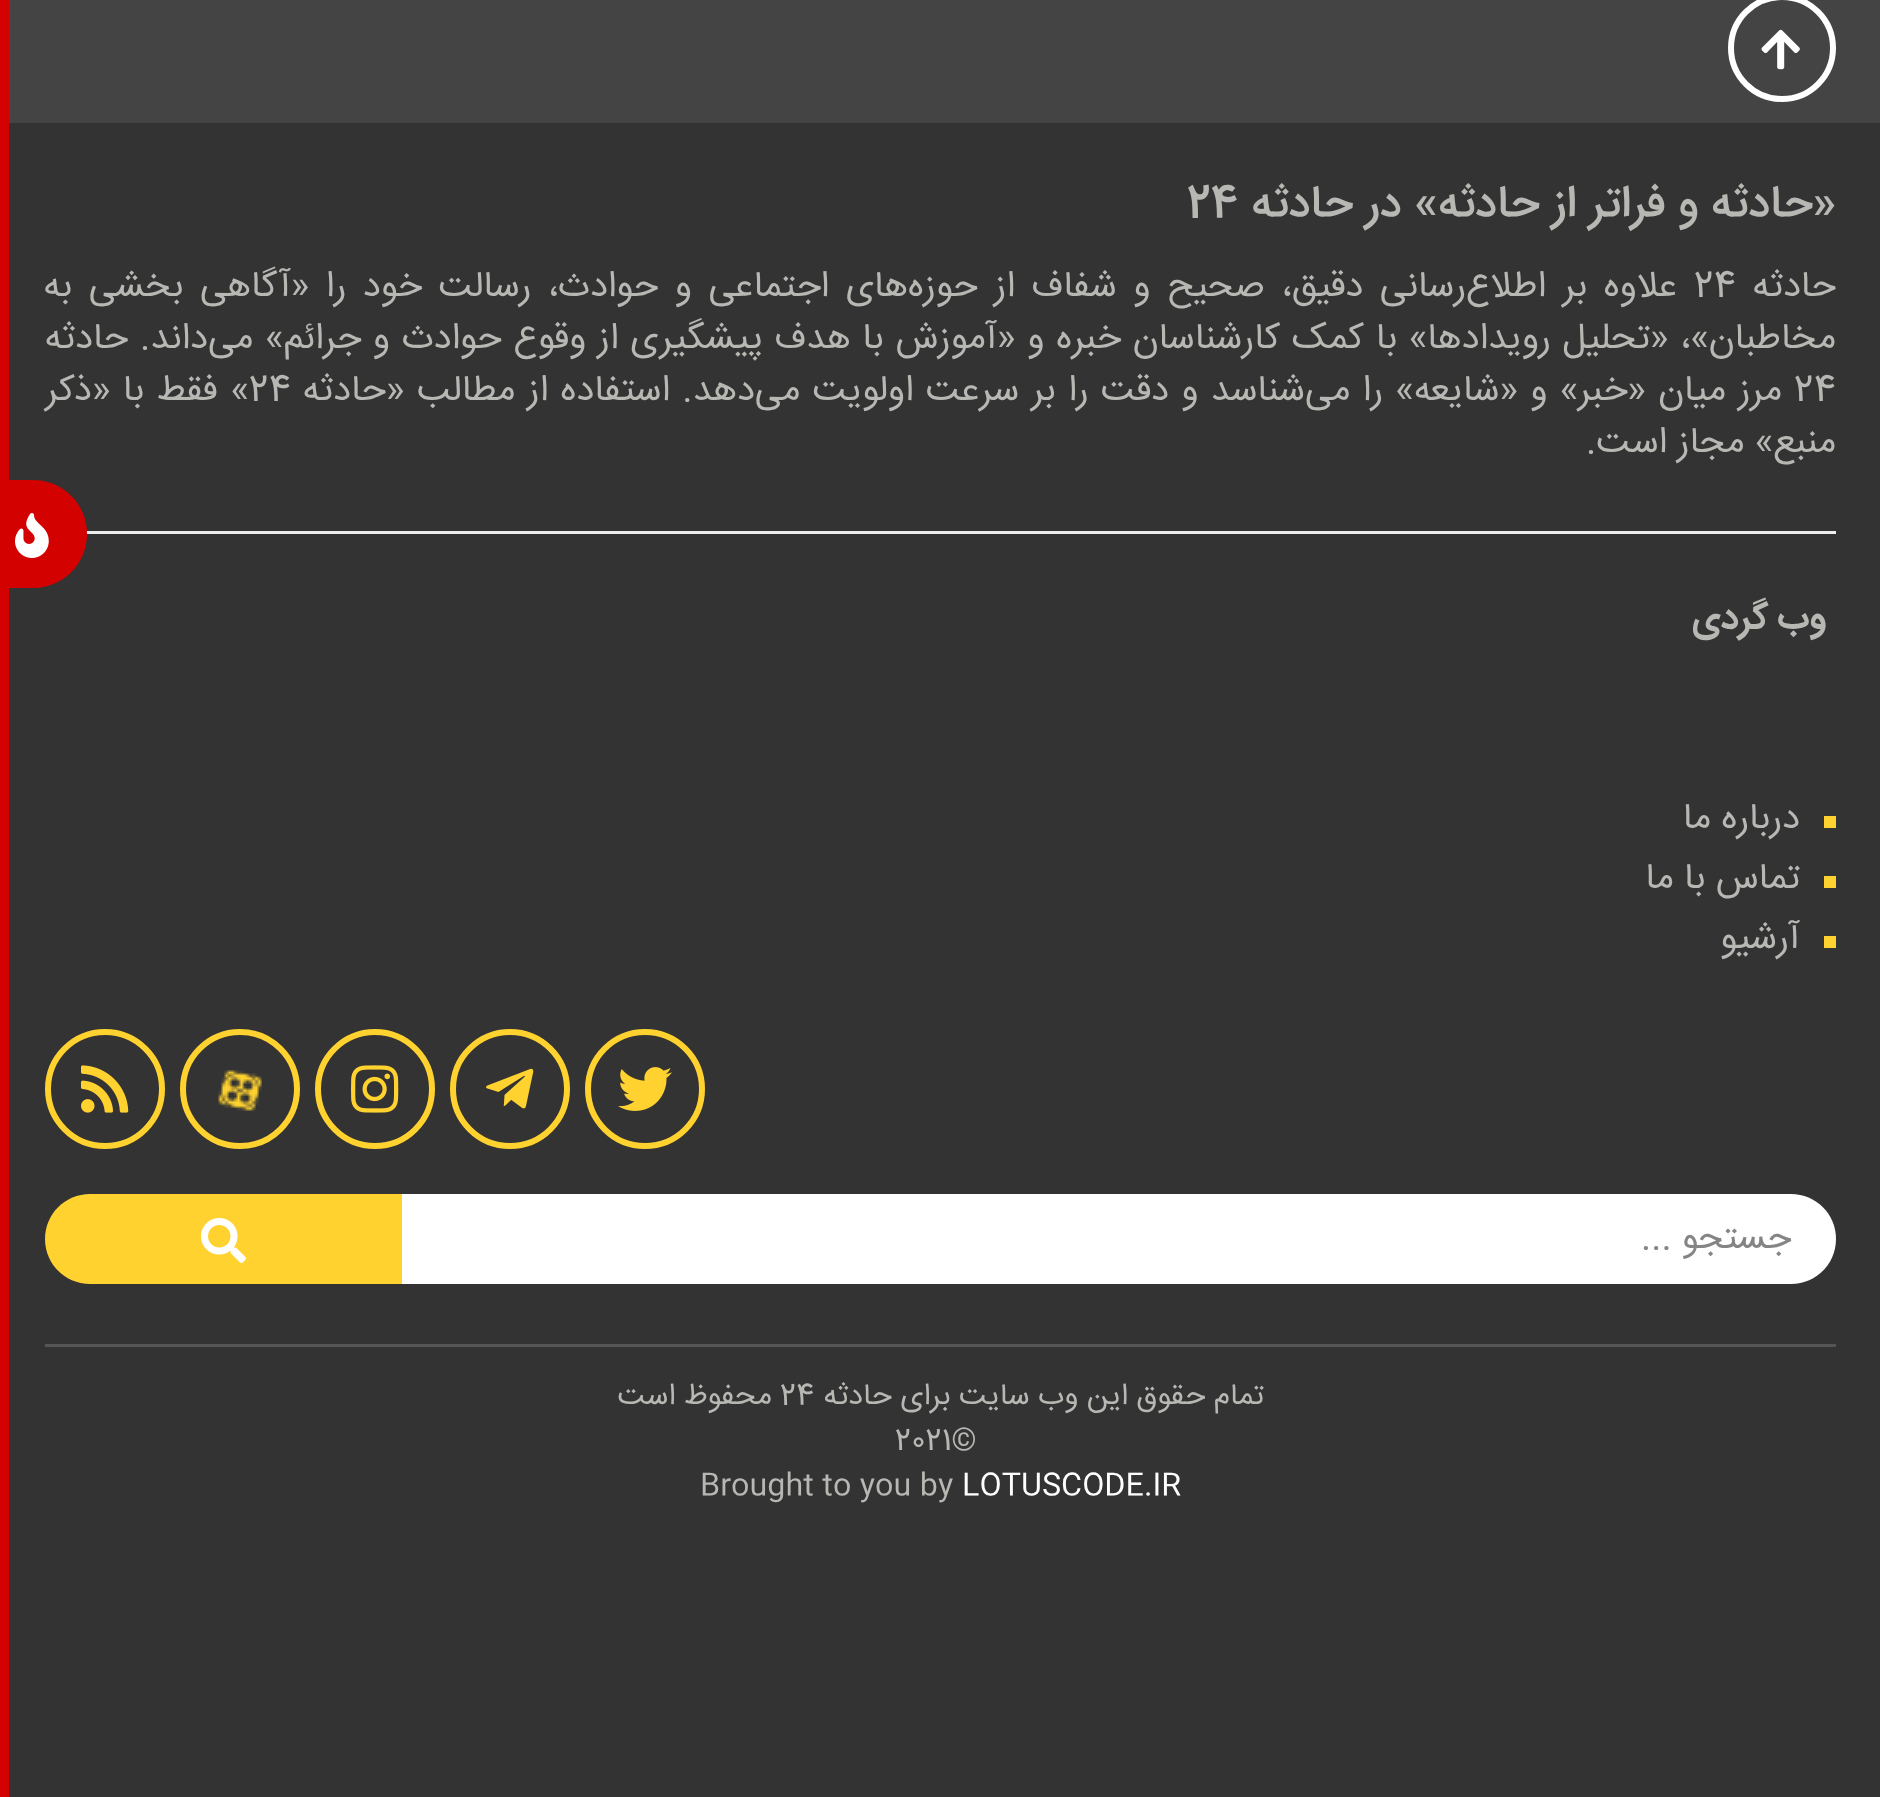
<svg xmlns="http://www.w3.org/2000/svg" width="1880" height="1797">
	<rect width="100%" height="100%" fill="#444444" />
	<circle cx="1782" cy="48" r="51" fill="none" stroke="#FFFFFF" stroke-width="6" />
	<image x="1761" y="29" width="39" height="41" href="assets/img1.png" />
	<rect x="9" y="123" width="1871" height="1674" fill="#333333" />
	<rect x="86" y="531" width="1750" height="3" fill="#EEEEEE" />
	<path d="M-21 480H33C63 480 87 504 87 534C87 564 63 588 33 588H-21Z" fill="#D30100" />
	<rect x="0" y="0" width="9" height="1797" fill="#D30100" />
	<image x="15" y="513" width="34" height="45" href="assets/img2.png" />
	<text x="1836" y="216" font-family="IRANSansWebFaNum" font-size="45" font-weight="500" direction="rtl" fill="#B7B8B3">«حادثه و فراتر از حادثه» در حادثه</text>
	<text x="1187" y="216" font-family="IRANSansWebFaNum" font-size="45" font-weight="500" fill="#B7B8B3">24</text>
	<text x="1836" y="296" font-family="IRANSansWebFaNum" font-size="36.6" direction="rtl" fill="#B7B8B3">حادثه</text>
	<text x="1694" y="296" font-family="IRANSansWebFaNum" font-size="36.6" fill="#B7B8B3">24</text>
	<g font-family="IRANSansWebFaNum" font-size="36.6" direction="rtl" fill="#B7B8B3">
		<text x="1677" y="296" word-spacing="6.25">علاوه بر اطلاع‌رسانی دقیق، صحیح و شفاف از حوزه‌های اجتماعی و حوادث، رسالت خود را «آگاهی بخشی به</text>
		<text x="1836" y="348" word-spacing="1.4">مخاطبان»، «تحلیل رویدادها» با کمک کارشناسان خبره و «آموزش با هدف پیشگیری از وقوع حوادث و جرائم» می‌داند. حادثه‌</text>
	</g>
	<text x="1794" y="400" font-family="IRANSansWebFaNum" font-size="36.6" fill="#B7B8B3">24</text>
	<text x="1782" y="400" word-spacing="2" font-family="IRANSansWebFaNum" font-size="36.6" direction="rtl" fill="#B7B8B3">مرز میان «خبر» و «شایعه» را می‌‌شناسد و دقت را بر سرعت اولویت می‌دهد. استفاده از مطالب «حادثه</text>
	<text x="249" y="400" font-family="IRANSansWebFaNum" font-size="36.6" fill="#B7B8B3">24</text>
	<g font-family="IRANSansWebFaNum" font-size="36.6" direction="rtl" fill="#B7B8B3">
		<text x="249" y="400" word-spacing="2">» فقط با «ذکر</text>
		<text x="1836" y="452">منبع» مجاز است.</text>
	</g>
	<text x="1826" y="628" font-family="IRANSansWebFaNum" font-size="36.6" font-weight="700" direction="rtl" fill="#B7B8B3">وب گردی</text>
	<rect x="1824" y="816" width="12" height="12" fill="#FFD22F" />
	<text x="1800" y="828" font-family="IRANSansWebFaNum" font-size="36.6" direction="rtl" fill="#B7B8B3">درباره ما</text>
	<rect x="1824" y="876" width="12" height="12" fill="#FFD22F" />
	<text x="1800" y="888" font-family="IRANSansWebFaNum" font-size="36.6" direction="rtl" fill="#B7B8B3">تماس با ما</text>
	<rect x="1824" y="936" width="12" height="12" fill="#FFD22F" />
	<text x="1800" y="948" font-family="IRANSansWebFaNum" font-size="36.6" direction="rtl" fill="#B7B8B3">آرشیو</text>
	<circle cx="645" cy="1089" r="57" fill="none" stroke="#FFD22F" stroke-width="6" />
	<image x="618" y="1067" width="54" height="44" href="assets/img3.png" />
	<circle cx="510" cy="1089" r="57" fill="none" stroke="#FFD22F" stroke-width="6" />
	<image x="486" y="1068" width="48" height="41" href="assets/img4.png" />
	<circle cx="375" cy="1089" r="57" fill="none" stroke="#FFD22F" stroke-width="6" />
	<image x="351" y="1065" width="48" height="48" href="assets/img5.png" />
	<circle cx="240" cy="1089" r="57" fill="none" stroke="#FFD22F" stroke-width="6" />
	<image x="218" y="1070" width="44" height="41" href="assets/img6.png" />
	<circle cx="105" cy="1089" r="57" fill="none" stroke="#FFD22F" stroke-width="6" />
	<image x="81" y="1065" width="48" height="48" href="assets/img7.png" />
	<path d="M402 1194H1791C1816 1194 1836 1214 1836 1239C1836 1264 1816 1284 1791 1284H402Z" fill="#FFFFFF" />
	<text x="1791" y="1248" font-family="IRANSansWebFaNum" font-size="36" direction="rtl" fill="#858585">جستجو ...</text>
	<path d="M90 1194H402V1284H90C65 1284 45 1264 45 1239C45 1214 65 1194 90 1194Z" fill="#FFD22F" />
	<image x="201" y="1218" width="45" height="45" href="assets/img8.png" />
	<rect x="45" y="1344" width="1791" height="3" fill="#555555" />
	<text x="1264" y="1404" font-family="IRANSansWebFaNum" font-size="30" direction="rtl" fill="#B7B8B3">تمام حقوق این وب سایت برای حادثه</text>
	<text x="780" y="1404" font-family="IRANSansWebFaNum" font-size="30" fill="#B7B8B3">24</text>
	<text x="772" y="1404" font-family="IRANSansWebFaNum" font-size="30" direction="rtl" fill="#B7B8B3">محفوظ است</text>
	<text x="895" y="1449" font-family="IRANSansWebFaNum" font-size="30" fill="#B7B8B3">2021©</text>
	<text x="962" y="1494" font-family="IRANSansWebFaNum" font-size="30" fill="#FFFFFF">LOTUSCODE.IR</text>
	<text x="700" y="1494" font-family="IRANSansWebFaNum" font-size="30" fill="#B7B8B3">Brought to you by</text>
</svg>
